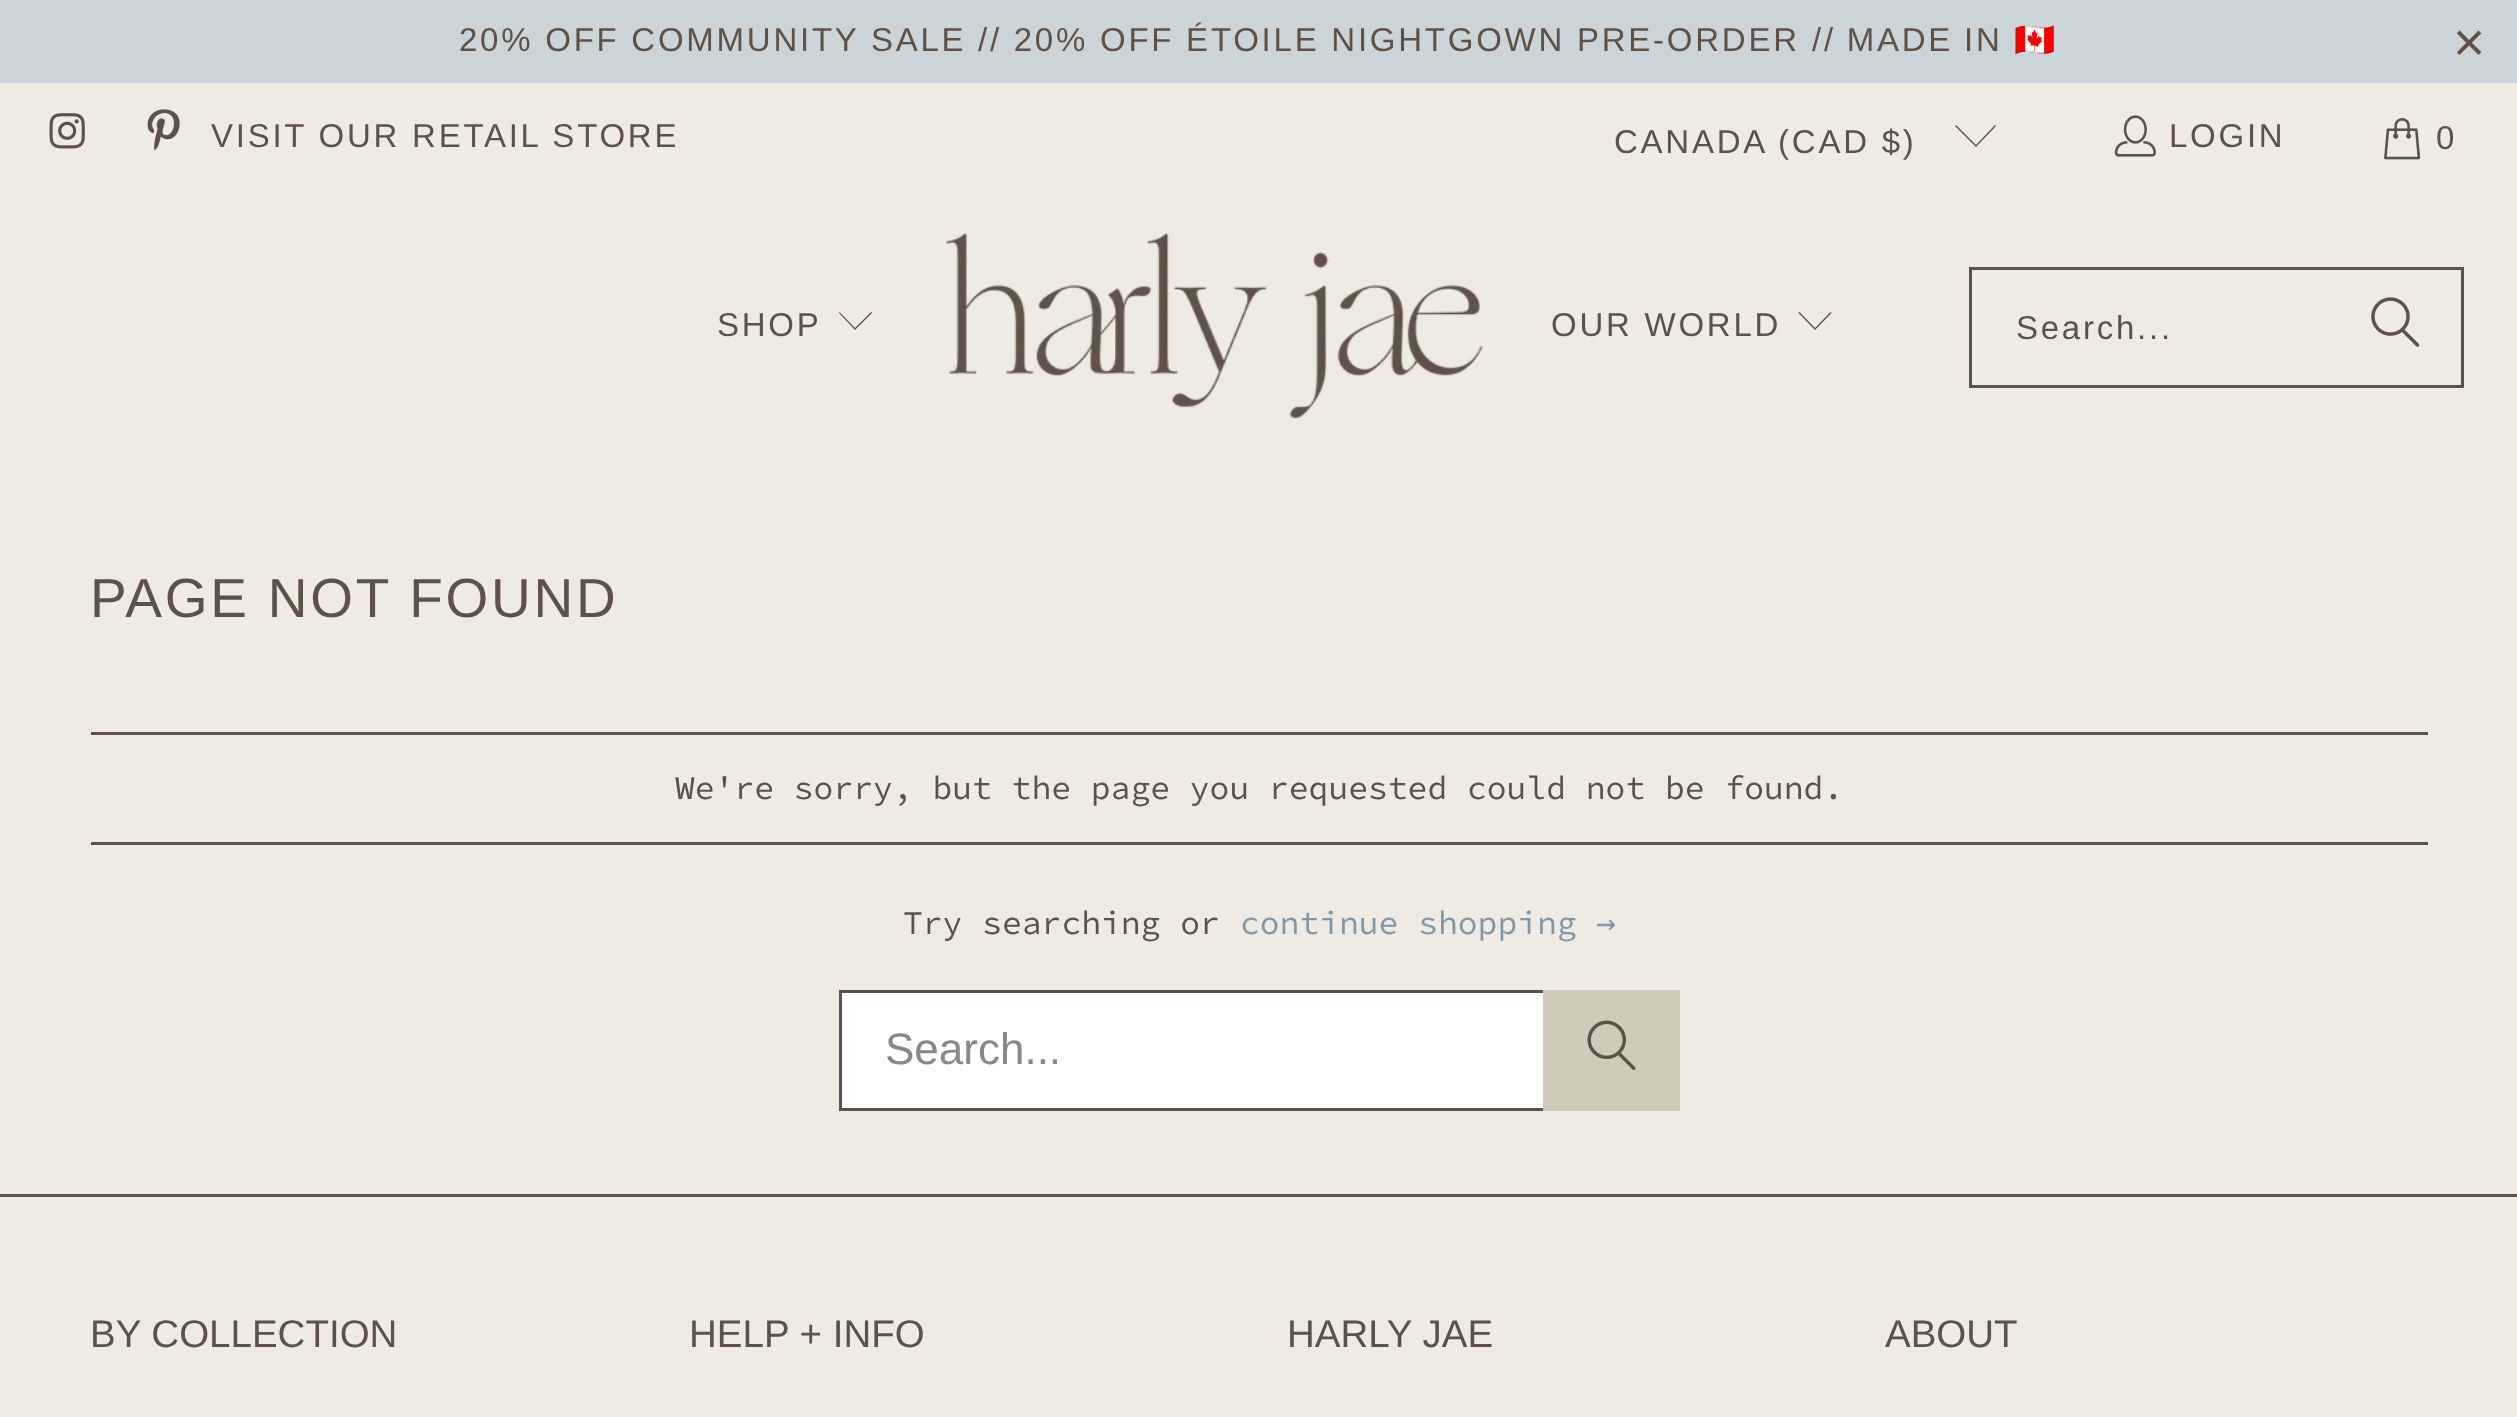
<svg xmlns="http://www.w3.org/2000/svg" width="2517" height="1417">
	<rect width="100%" height="100%" fill="#EFEBE2" />
	<rect x="0" y="0" width="2517" height="83" fill="#CBD4D9" />
	<g font-family="Liberation Sans" font-size="33" letter-spacing="2.75" fill="#605146">
		<text x="459" y="51">20% OFF COMMUNITY SALE</text>
		<text x="978" y="51">// 20% OFF ÉTOILE NIGHTGOWN PRE-ORDER</text>
		<text x="1812" y="51" word-spacing="-1">// MADE IN</text>
	</g>
	<text x="2014" y="51" font-family="Noto Color Emoji" font-size="33" letter-spacing="2.75" fill="#605146">🇨🇦</text>
	<text x="2453" y="61" font-family="Liberation Sans" font-size="55" letter-spacing="2.75" fill="#605146">×</text>
	<image x="49" y="113" width="36" height="36" href="assets/img1.png" />
	<image x="147" y="109" width="33" height="42" href="assets/img2.png" />
	<g font-family="Liberation Sans" font-size="33" letter-spacing="2.75" fill="#605146">
		<text x="211" y="147">VISIT OUR RETAIL STORE</text>
		<text x="1614" y="153">CANADA (CAD $)</text>
	</g>
	<path d="M1976 147L1955 126L1956 125L1976 145L1995 125L1996 126Z" fill="#605146" />
	<image x="2114" y="115" width="42" height="42" href="assets/img3.png" />
	<text x="2169" y="147" font-family="Liberation Sans" font-size="33" letter-spacing="2.75" fill="#605146">LOGIN</text>
	<image x="2384" y="118" width="37" height="42" href="assets/img4.png" />
	<g font-family="Liberation Sans" font-size="33" letter-spacing="2.75" fill="#605146">
		<text x="2436" y="149">0</text>
		<text x="717" y="336">SHOP</text>
	</g>
	<path d="M855 330L839 313L839.5 312L855 328L871 312L872 313Z" fill="#605146" />
	<image x="945" y="233" width="538" height="186" href="assets/img5.png" />
	<text x="1551" y="336" font-family="Liberation Sans" font-size="33" letter-spacing="2.75" fill="#605146">OUR WORLD</text>
	<path d="M1815 330L1798.5 313L1799.5 312L1815 328L1830.5 312L1831.5 313Z" fill="#605146" />
	<rect x="1970.5" y="268.5" width="492" height="118" fill="none" stroke="#605146" stroke-width="3" />
	<text x="2016" y="339" font-family="Liberation Sans" font-size="33" letter-spacing="2.75" fill="#605146">Search...</text>
	<image x="2371" y="297" width="49" height="50" href="assets/img6.png" />
	<text x="90" y="617" font-family="Liberation Sans" font-size="55" letter-spacing="2.75" fill="#605146">PAGE NOT FOUND</text>
	<rect x="91" y="732" width="2337" height="3" fill="#605146" />
	<rect x="91" y="842" width="2337" height="3" fill="#605146" />
	<g font-family="Source Code Pro" font-size="33" fill="#605146">
		<text x="675" y="799">We're sorry, but the page you requested could not be found.</text>
		<text x="903" y="934">Try searching or</text>
	</g>
	<text x="1240" y="934" font-family="Source Code Pro" font-size="33" fill="#8099AA">continue shopping</text>
	<text x="1596" y="934" font-family="DejaVu Sans Mono" font-size="33" fill="#8099AA">→</text>
	<rect x="842" y="993" width="701" height="115" fill="#FFFFFF" />
	<rect x="840.5" y="991.5" width="838" height="118" fill="none" stroke="#605146" stroke-width="3" />
	<text x="885" y="1064" font-family="Liberation Sans" font-size="44" fill="#888888">Search...</text>
	<rect x="1543" y="990" width="137" height="121" fill="#D1CABB" />
	<image x="1587" y="1020" width="49" height="51" href="assets/img7.png" />
	<rect x="0" y="1194" width="2517" height="3" fill="#605146" />
	<g font-family="Liberation Sans" font-size="38.5" fill="#605146">
		<text x="90" y="1347">BY COLLECTION</text>
		<text x="689" y="1347">HELP + INFO</text>
		<text x="1287" y="1347">HARLY JAE</text>
		<text x="1885" y="1347">ABOUT</text>
	</g>
</svg>
